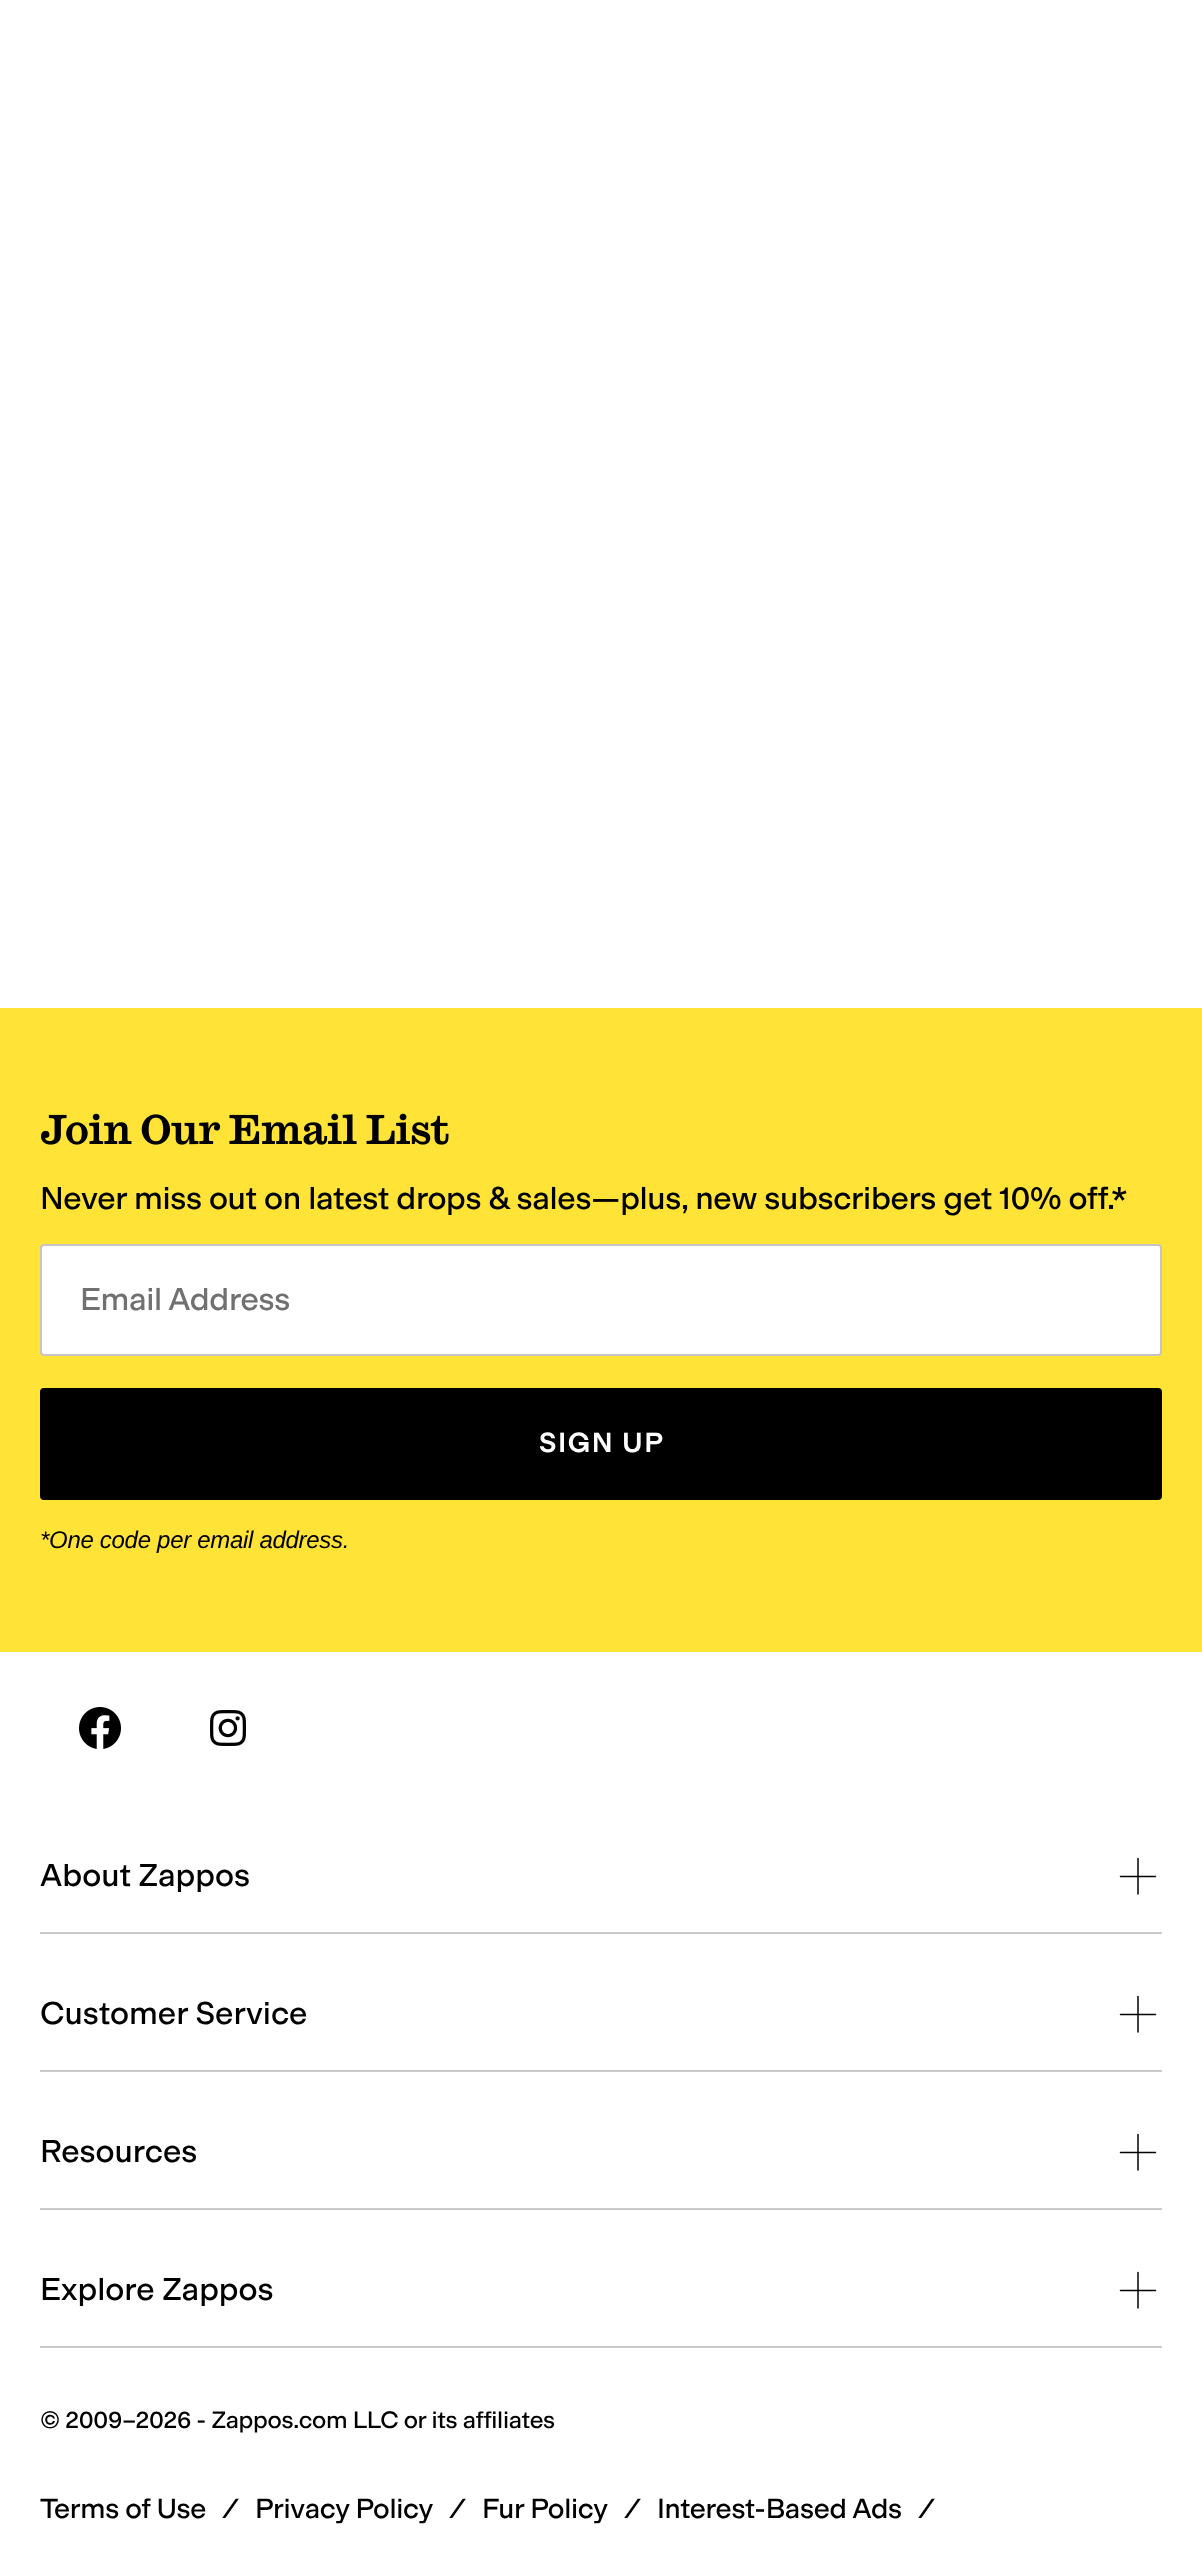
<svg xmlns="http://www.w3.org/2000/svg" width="1202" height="2559">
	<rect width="100%" height="100%" fill="#FFFFFF" />
	<rect x="0" y="1008" width="1202" height="644" fill="#FFE337" />
	<image x="41" y="1113" width="408" height="32" href="assets/img1.png" />
	<text x="40" y="1209" font-family="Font" font-size="32" letter-spacing="-0.32" fill="#000000">Never miss out on latest drops &amp; sales—plus, new subscribers get 10% off.*</text>
	<rect x="41" y="1245" width="1120" height="110" rx="3" fill="#FFFFFF" stroke="#C5C5C5" stroke-width="2" />
	<text x="80" y="1310" font-family="Font" font-size="32" letter-spacing="-0.3" fill="#707070">Email Address</text>
	<rect x="41" y="1389" width="1120" height="110" rx="3" fill="#000000" stroke="#000000" stroke-width="2" />
	<text x="539" y="1452" font-family="Font" font-size="28" font-weight="500" letter-spacing="1.5" fill="#FFFFFF">SIGN UP</text>
	<text x="40" y="1548" font-family="Liberation Sans" font-size="24" font-style="italic" letter-spacing="-0.3" fill="#000000">*One code per email address.</text>
	<image x="79" y="1707" width="42" height="42" href="assets/img2.png" />
	<image x="210" y="1710" width="36" height="36" href="assets/img3.png" />
	<rect x="40" y="1932" width="1122" height="2" fill="#C9C9C9" />
	<text x="40" y="1886" font-family="Font" font-size="32" fill="#000000">About Zappos</text>
	<path d="M1138 1894V1858.5M1155.5 1876.5H1120.5" fill="none" stroke="#030303" stroke-width="1.5" stroke-linecap="round" stroke-linejoin="round" />
	<rect x="40" y="2070" width="1122" height="2" fill="#C9C9C9" />
	<text x="40" y="2024" font-family="Font" font-size="32" fill="#000000">Customer Service</text>
	<path d="M1138 2032V1996.5M1155.5 2014.5H1120.5" fill="none" stroke="#030303" stroke-width="1.5" stroke-linecap="round" stroke-linejoin="round" />
	<rect x="40" y="2208" width="1122" height="2" fill="#C9C9C9" />
	<text x="40" y="2162" font-family="Font" font-size="32" fill="#000000">Resources</text>
	<path d="M1138 2170V2134.5M1155.5 2152.5H1120.5" fill="none" stroke="#030303" stroke-width="1.5" stroke-linecap="round" stroke-linejoin="round" />
	<rect x="40" y="2346" width="1122" height="2" fill="#C9C9C9" />
	<text x="40" y="2300" font-family="Font" font-size="32" fill="#000000">Explore Zappos</text>
	<path d="M1138 2308V2272.5M1155.5 2290.5H1120.5" fill="none" stroke="#030303" stroke-width="1.5" stroke-linecap="round" stroke-linejoin="round" />
	<text x="40" y="2428" font-family="Font" font-size="24" letter-spacing="-0.3" fill="#000000">© 2009–2026 - Zappos.com LLC or its affiliates</text>
	<g font-family="Font" font-size="28" letter-spacing="-0.3" fill="#000000">
		<text x="40" y="2518">Terms of Use</text>
		<text x="222" y="2518">/</text>
		<text x="255" y="2518">Privacy Policy</text>
		<text x="449" y="2518">/</text>
		<text x="482" y="2518">Fur Policy</text>
		<text x="624" y="2518">/</text>
		<text x="657" y="2518">Interest-Based Ads</text>
		<text x="918" y="2518">/</text>
	</g>
</svg>
